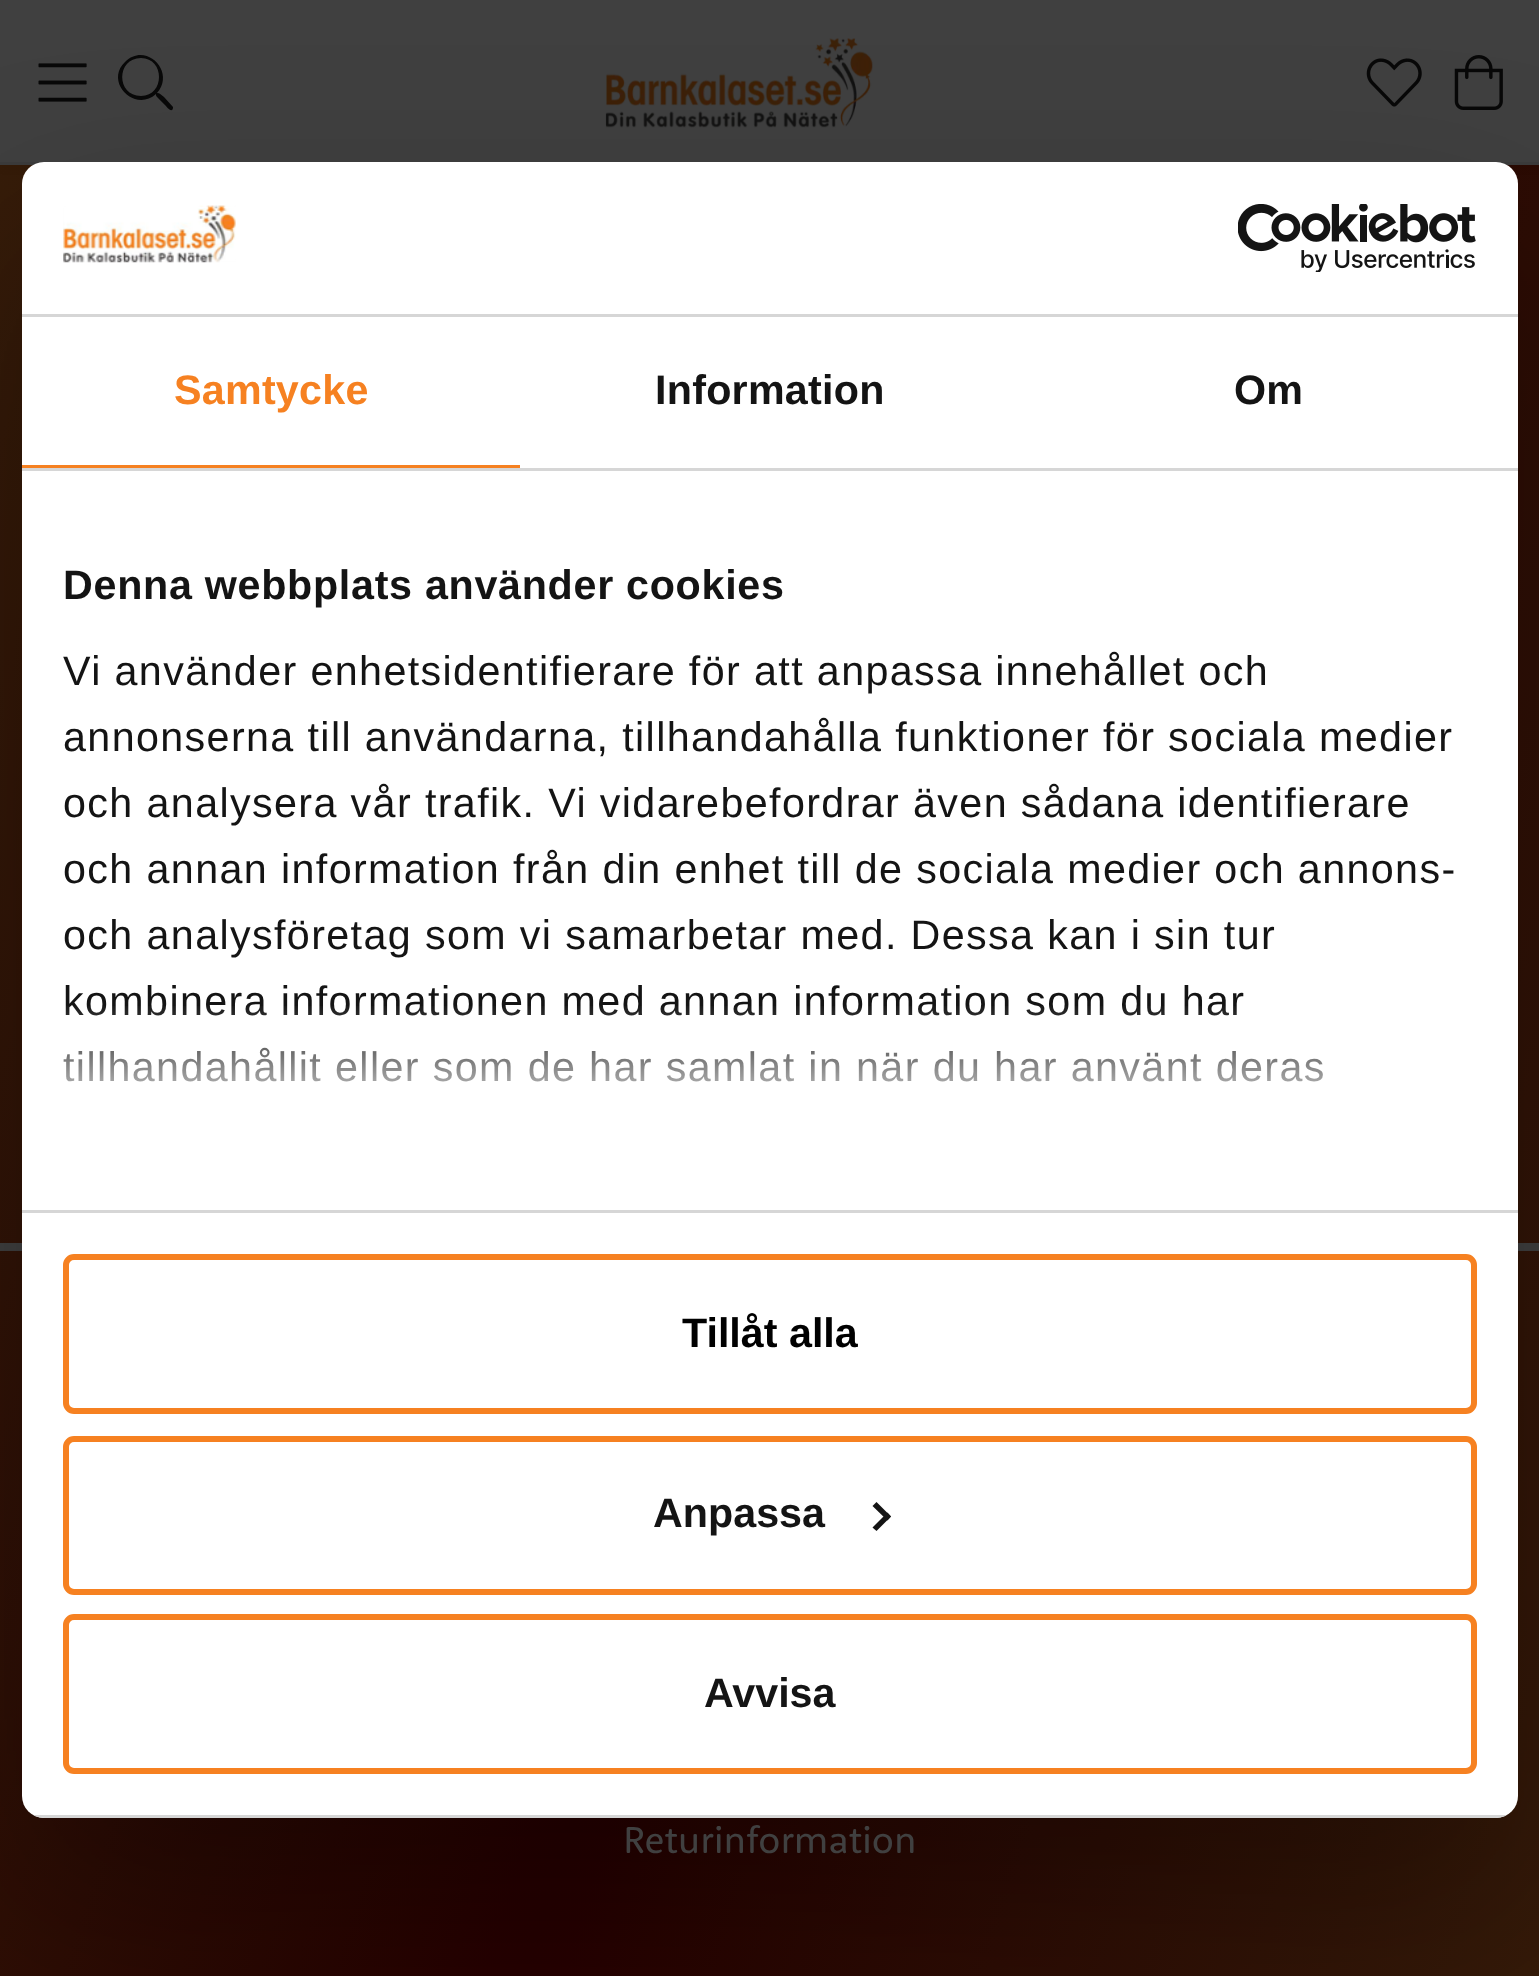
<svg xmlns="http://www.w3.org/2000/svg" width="1539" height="1976">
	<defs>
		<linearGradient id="g1" gradientUnits="userSpaceOnUse" x1="-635" y1="745" x2="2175" y2="1617"><stop offset="0" stop-color="#3D280D" /><stop offset="0.5" stop-color="#260000" /><stop offset="1" stop-color="#3D280D" /></linearGradient>
		<linearGradient id="g2" gradientUnits="userSpaceOnUse" x1="752" y1="1209" x2="752" y2="1003"><stop offset="0" stop-color="#FFFFFF" /><stop offset="0.5" stop-color="#FFFFFF" stop-opacity="0.8" /><stop offset="1" stop-color="#FFFFFF" stop-opacity="0" /></linearGradient>
		<clipPath id="clip1"><rect x="22" y="162" width="1496" height="1656" rx="22" /></clipPath>
	</defs>
	<rect width="100%" height="100%" fill="#FFFFFF" />
	<rect x="0" y="165" width="1539" height="1811" fill="url(#g1)" />
	<rect x="0" y="3" width="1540" height="165" fill="#000000" fill-opacity="0.05" filter="blur(4px)" />
	<rect x="0" y="0" width="1539" height="162" fill="#404040" />
	<rect x="0" y="162" width="1539" height="3" fill="#3C3C3C" />
	<image x="38" y="63" width="49" height="39" href="assets/img3.png" />
	<path d="M173 107L164 97C161 95 160 93 157 93C176 72 146 41 125 62C104 82 135 113 156 94C156 96 156 96 158 98L165 105C166 106 172 114 173 108ZM141 96C116 96 116 58 141 58C165 58 165 96 141 96Z" fill="#090909" />
	<image x="605" y="38" width="268" height="90" href="assets/img4.png" />
	<image x="1366" y="58" width="56" height="49" href="assets/img5.png" />
	<image x="1454" y="55" width="49" height="55" href="assets/img6.png" />
	<rect x="0" y="1243" width="1539" height="8" fill="#404040" />
	<rect x="22" y="250" width="1496" height="1656" rx="22" fill="#000000" fill-opacity="0.3" filter="blur(93.5px)" />
	<rect x="22" y="162" width="1496" height="1656" rx="22" fill="#FFFFFF" />
	<rect x="22" y="314" width="1496" height="3" fill="#D6D6D6" />
	<image x="63" y="205" width="173" height="58" href="assets/img1.png" />
	<image x="1238" y="204" width="238" height="68" href="assets/img2.png" />
	<rect x="22" y="468" width="1496" height="3" fill="#D6D6D6" />
	<rect x="22" y="465" width="498" height="3" fill="#F68121" />
	<text x="174" y="404" font-family="Liberation Sans" font-size="41.25" font-weight="700" letter-spacing="0.25" fill="#F68121">Samtycke</text>
	<g font-family="Liberation Sans" font-size="41.25" font-weight="700" letter-spacing="0.25" fill="#141414">
		<text x="655" y="404">Information</text>
		<text x="1234" y="404">Om</text>
	</g>
	<rect x="22" y="1210" width="1496" height="3" fill="#D6D6D6" />
	<text x="63" y="599" font-family="Liberation Sans" font-size="41.25" font-weight="700" letter-spacing="0.7" fill="#141414">Denna webbplats använder cookies</text>
	<g font-family="Liberation Sans" font-size="41.25" letter-spacing="1.38" fill="#141414">
		<text x="63" y="685">Vi använder enhetsidentifierare för att anpassa innehållet och</text>
		<text x="63" y="751">annonserna till användarna, tillhandahålla funktioner för sociala medier</text>
		<text x="63" y="817">och analysera vår trafik. Vi vidarebefordrar även sådana identifierare</text>
		<text x="63" y="883">och annan information från din enhet till de sociala medier och annons-</text>
		<text x="63" y="949">och analysföretag som vi samarbetar med. Dessa kan i sin tur</text>
		<text x="63" y="1015">kombinera informationen med annan information som du har</text>
		<text x="63" y="1081">tillhandahållit eller som de har samlat in när du har använt deras</text>
	</g>
	<rect x="63" y="1006" width="1260" height="76" fill="url(#g2)" />
	<g clip-path="url(#clip1)">
		<rect x="33" y="1815" width="1474" height="3" fill="#D6D6D6" />
	</g>
	<rect x="66" y="1257" width="1408" height="154" rx="8" fill="none" stroke="#F68121" stroke-width="6" />
	<text x="682" y="1347" font-family="Liberation Sans" font-size="41.25" font-weight="700" fill="#000000">Tillåt alla</text>
	<rect x="66" y="1439" width="1408" height="153" rx="8" fill="none" stroke="#F68121" stroke-width="6" />
	<text x="653" y="1527" font-family="Liberation Sans" font-size="41.25" font-weight="700" fill="#141414">Anpassa</text>
	<path d="M876.5 1502L891 1516.5L887.5 1520.5L872.5 1506Z" fill="#141414" />
	<path d="M887.5 1512.5L891 1516.5L876.5 1531L872.5 1527.5Z" fill="#141414" />
	<rect x="66" y="1617" width="1408" height="154" rx="8" fill="none" stroke="#F68121" stroke-width="6" />
	<text x="704" y="1707" font-family="Liberation Sans" font-size="41.25" font-weight="700" fill="#141414">Avvisa</text>
	<text x="623" y="1853" font-family="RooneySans" font-size="38.5" fill="#404040">Returinformation</text>
</svg>
